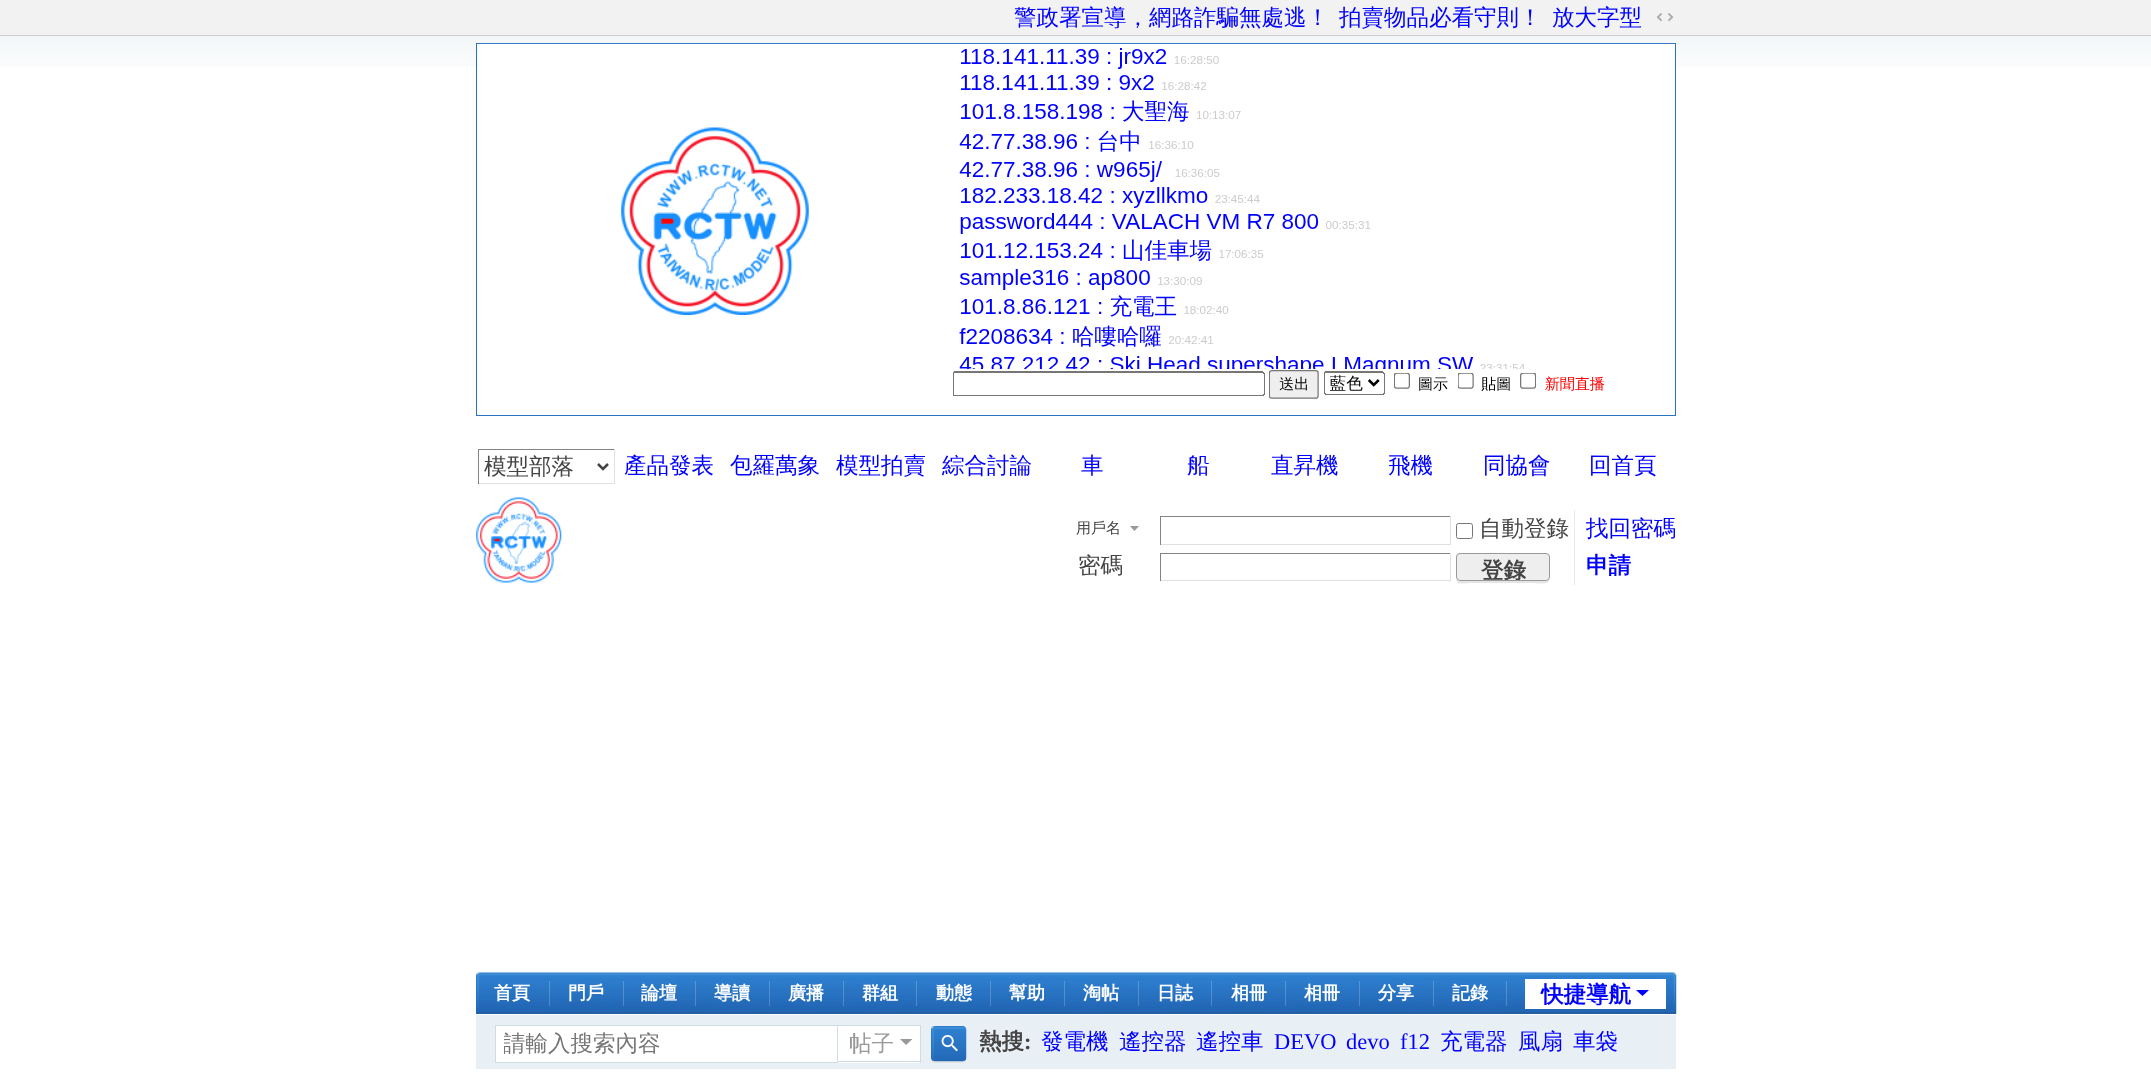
<svg xmlns="http://www.w3.org/2000/svg" width="2151" height="1075">
	<defs>
		<clipPath id="clip1"><rect x="1458" y="554" width="91" height="26" rx="2.5" /></clipPath>
		<clipPath id="clip2"><rect x="504" y="1029" width="325" height="30" /></clipPath>
	</defs>
	<rect width="100%" height="100%" fill="#FFFFFF" />
	<image x="0" y="36" width="2151" height="31" href="assets/img1.png" />
	<rect x="0" y="0" width="2151" height="35" fill="#F2F2F2" />
	<rect x="0" y="35" width="2151" height="1" fill="#CDCDCD" />
	<g font-family="WenQuanYi Zen Hei" font-size="22.5" font-weight="500" fill="#0000FF">
		<text x="1014" y="25">警政署宣導，網路詐騙無處逃！</text>
		<text x="1339" y="25">拍賣物品必看守則！</text>
		<text x="1552" y="25">放大字型</text>
	</g>
	<image x="1656" y="13" width="18" height="9" href="assets/img2.png" />
	<rect x="476" y="43" width="1200" height="1" fill="#2873C2" />
	<rect x="1675" y="43" width="1" height="373" fill="#2873C2" />
	<rect x="476" y="415" width="1200" height="1" fill="#2873C2" />
	<rect x="476" y="43" width="1" height="373" fill="#2873C2" />
	<image x="478" y="43" width="1197" height="356" href="assets/img3.png" />
	<rect x="478" y="449" width="137" height="1" fill="#848484" />
	<rect x="614" y="449" width="1" height="35" fill="#E0E0E0" />
	<rect x="478" y="483" width="137" height="1" fill="#E0E0E0" />
	<rect x="478" y="449" width="1" height="35" fill="#848484" />
	<path d="M598 464L603 469L608 464" fill="none" stroke="#444444" stroke-width="2.5" />
	<text x="484" y="474" font-family="WenQuanYi Zen Hei" font-size="22.5" font-weight="500" fill="#444444">模型部落</text>
	<g font-family="WenQuanYi Zen Hei" font-size="22.5" font-weight="500" fill="#0000FF">
		<text x="624" y="473">產品發表</text>
		<text x="730" y="473">包羅萬象</text>
		<text x="836" y="473">模型拍賣</text>
		<text x="942" y="473">綜合討論</text>
		<text x="1081" y="473">車</text>
		<text x="1187" y="473">船</text>
		<text x="1271" y="473">直昇機</text>
		<text x="1388" y="473">飛機</text>
		<text x="1483" y="473">同協會</text>
		<text x="1589" y="473">回首頁</text>
	</g>
	<image x="476" y="497" width="86" height="86" href="assets/img4.png" />
	<path d="M1139 526H1130L1134.5 531Z" fill="#999999" />
	<text x="1076" y="533" font-family="WenQuanYi Zen Hei" font-size="15" font-weight="500" fill="#444444">用戶名</text>
	<rect x="1160" y="516" width="291" height="1" fill="#848484" />
	<rect x="1450" y="516" width="1" height="29" fill="#E0E0E0" />
	<rect x="1160" y="544" width="291" height="1" fill="#E0E0E0" />
	<rect x="1160" y="516" width="1" height="29" fill="#848484" />
	<rect x="1456.5" y="523.5" width="16" height="15" rx="2" fill="none" stroke="#767676" />
	<text x="1479" y="536" font-family="WenQuanYi Zen Hei" font-size="22.5" font-weight="500" fill="#444444">自動登錄</text>
	<text x="1586" y="536" font-family="WenQuanYi Zen Hei" font-size="22.5" font-weight="500" fill="#0000FF">找回密碼</text>
	<text x="1078" y="573" font-family="WenQuanYi Zen Hei" font-size="22.5" font-weight="500" fill="#444444">密碼</text>
	<rect x="1160" y="553" width="291" height="1" fill="#848484" />
	<rect x="1450" y="553" width="1" height="28" fill="#E0E0E0" />
	<rect x="1160" y="580" width="291" height="1" fill="#E0E0E0" />
	<rect x="1160" y="553" width="1" height="28" fill="#848484" />
	<rect x="1574" y="510" width="1" height="75" fill="#E5EDF2" />
	<path d="M1456 557V572C1456 587 1457 583 1474 583H1532C1534 583 1547 585 1549 581L1550 578C1550 580 1548 581 1546 581H1460C1458 581 1456 580 1456 578Z" fill="#E5E5E5" />
	<rect x="1456.5" y="553.5" width="93" height="27" rx="3.5" fill="#EEEEEE" stroke="#999999" />
	<g clip-path="url(#clip1)">
		<text x="1481" y="578" font-family="WenQuanYi Zen Hei" font-size="22.5" font-weight="700" fill="#444444">登錄</text>
	</g>
	<text x="1586" y="573" font-family="WenQuanYi Zen Hei" font-size="22.5" font-weight="700" fill="#0000FF">申請</text>
	<rect x="476" y="973" width="1200" height="41" fill="#2B7ACD" />
	<image x="476" y="972" width="1201" height="42" href="assets/img5.png" />
	<rect x="549" y="981" width="1" height="25" fill="#FFFFFF" fill-opacity="0.2" />
	<text x="494" y="999" font-family="WenQuanYi Zen Hei" font-size="18" font-weight="700" fill="#FFFFFF">首頁</text>
	<rect x="623" y="981" width="1" height="25" fill="#FFFFFF" fill-opacity="0.2" />
	<text x="568" y="999" font-family="WenQuanYi Zen Hei" font-size="18" font-weight="700" fill="#FFFFFF">門戶</text>
	<rect x="695" y="981" width="1" height="25" fill="#FFFFFF" fill-opacity="0.2" />
	<text x="641" y="999" font-family="WenQuanYi Zen Hei" font-size="18" font-weight="700" fill="#FFFFFF">論壇</text>
	<rect x="769" y="981" width="1" height="25" fill="#FFFFFF" fill-opacity="0.2" />
	<text x="714" y="999" font-family="WenQuanYi Zen Hei" font-size="18" font-weight="700" fill="#FFFFFF">導讀</text>
	<rect x="843" y="981" width="1" height="25" fill="#FFFFFF" fill-opacity="0.2" />
	<text x="788" y="999" font-family="WenQuanYi Zen Hei" font-size="18" font-weight="700" fill="#FFFFFF">廣播</text>
	<rect x="916" y="981" width="1" height="25" fill="#FFFFFF" fill-opacity="0.2" />
	<text x="862" y="999" font-family="WenQuanYi Zen Hei" font-size="18" font-weight="700" fill="#FFFFFF">群組</text>
	<rect x="990" y="981" width="1" height="25" fill="#FFFFFF" fill-opacity="0.2" />
	<text x="936" y="999" font-family="WenQuanYi Zen Hei" font-size="18" font-weight="700" fill="#FFFFFF">動態</text>
	<rect x="1064" y="981" width="1" height="25" fill="#FFFFFF" fill-opacity="0.2" />
	<text x="1009" y="999" font-family="WenQuanYi Zen Hei" font-size="18" font-weight="700" fill="#FFFFFF">幫助</text>
	<rect x="1138" y="981" width="1" height="25" fill="#FFFFFF" fill-opacity="0.2" />
	<text x="1083" y="999" font-family="WenQuanYi Zen Hei" font-size="18" font-weight="700" fill="#FFFFFF">淘帖</text>
	<rect x="1211" y="981" width="1" height="25" fill="#FFFFFF" fill-opacity="0.2" />
	<text x="1157" y="999" font-family="WenQuanYi Zen Hei" font-size="18" font-weight="700" fill="#FFFFFF">日誌</text>
	<rect x="1285" y="981" width="1" height="25" fill="#FFFFFF" fill-opacity="0.2" />
	<text x="1231" y="999" font-family="WenQuanYi Zen Hei" font-size="18" font-weight="700" fill="#FFFFFF">相冊</text>
	<rect x="1359" y="981" width="1" height="25" fill="#FFFFFF" fill-opacity="0.2" />
	<text x="1304" y="999" font-family="WenQuanYi Zen Hei" font-size="18" font-weight="700" fill="#FFFFFF">相冊</text>
	<rect x="1433" y="981" width="1" height="25" fill="#FFFFFF" fill-opacity="0.2" />
	<text x="1378" y="999" font-family="WenQuanYi Zen Hei" font-size="18" font-weight="700" fill="#FFFFFF">分享</text>
	<rect x="1506" y="981" width="1" height="25" fill="#FFFFFF" fill-opacity="0.2" />
	<text x="1452" y="999" font-family="WenQuanYi Zen Hei" font-size="18" font-weight="700" fill="#FFFFFF">記錄</text>
	<rect x="1525" y="979" width="141" height="30" fill="#FFFFFF" />
	<text x="1541" y="1002" font-family="WenQuanYi Zen Hei" font-size="22.5" font-weight="700" fill="#0000FF">快捷導航</text>
	<path d="M1636 990H1649L1642.5 996Z" fill="#0000FF" />
	<rect x="476" y="1015" width="1200" height="54" fill="#E8EFF5" />
	<rect x="835" y="1025" width="86" height="1" fill="#CFDEE3" />
	<rect x="838" y="1026" width="82" height="37" fill="#FFFFFF" />
	<rect x="920" y="1025" width="1" height="38" fill="#CFDEE3" />
	<rect x="835" y="1061" width="86" height="1" fill="#CFDEE3" />
	<rect x="495.5" y="1025.5" width="342" height="37" fill="#FFFFFF" stroke="#CFDEE3" />
	<g clip-path="url(#clip2)">
		<text x="503" y="1051" font-family="WenQuanYi Zen Hei" font-size="22.5" font-weight="500" fill="#757575">請輸入搜索內容</text>
	</g>
	<text x="849" y="1051" font-family="WenQuanYi Zen Hei" font-size="22.5" font-weight="500" fill="#999999">帖子</text>
	<path d="M900 1039H912.5L906 1045Z" fill="#999999" />
	<path d="M931 1030.5V1054.5C931 1057.5 930 1062 934 1063H962C964.5 1063 966 1061 966 1059C965.5 1060.5 964 1061 962.5 1061H935C933 1061 931 1059.5 931 1057.5Z" fill="#E5E5E5" />
	<rect x="931" y="1026" width="35" height="35" rx="4" fill="#2B7ACD" />
	<image x="931" y="1026" width="36" height="36" href="assets/img6.png" />
	<image x="941" y="1034" width="17" height="18" href="assets/img7.png" />
	<text x="979" y="1049" font-family="WenQuanYi Zen Hei" font-size="22.5" font-weight="700" fill="#444444">熱搜</text>
	<text x="1024" y="1049" font-family="Liberation Serif" font-size="22.5" font-weight="700" fill="#444444">:</text>
	<g font-family="WenQuanYi Zen Hei" font-size="22.5" font-weight="500" fill="#0000FF">
		<text x="1041" y="1049">發電機</text>
		<text x="1119" y="1049">遙控器</text>
		<text x="1196" y="1049">遙控車</text>
	</g>
	<g font-family="Liberation Serif" font-size="22.5" fill="#0000FF">
		<text x="1274" y="1049">DEVO</text>
		<text x="1346" y="1049">devo</text>
		<text x="1400" y="1049">f12</text>
	</g>
	<g font-family="WenQuanYi Zen Hei" font-size="22.5" font-weight="500" fill="#0000FF">
		<text x="1440" y="1049">充電器</text>
		<text x="1518" y="1049">風扇</text>
		<text x="1573" y="1049">車袋</text>
	</g>
</svg>
